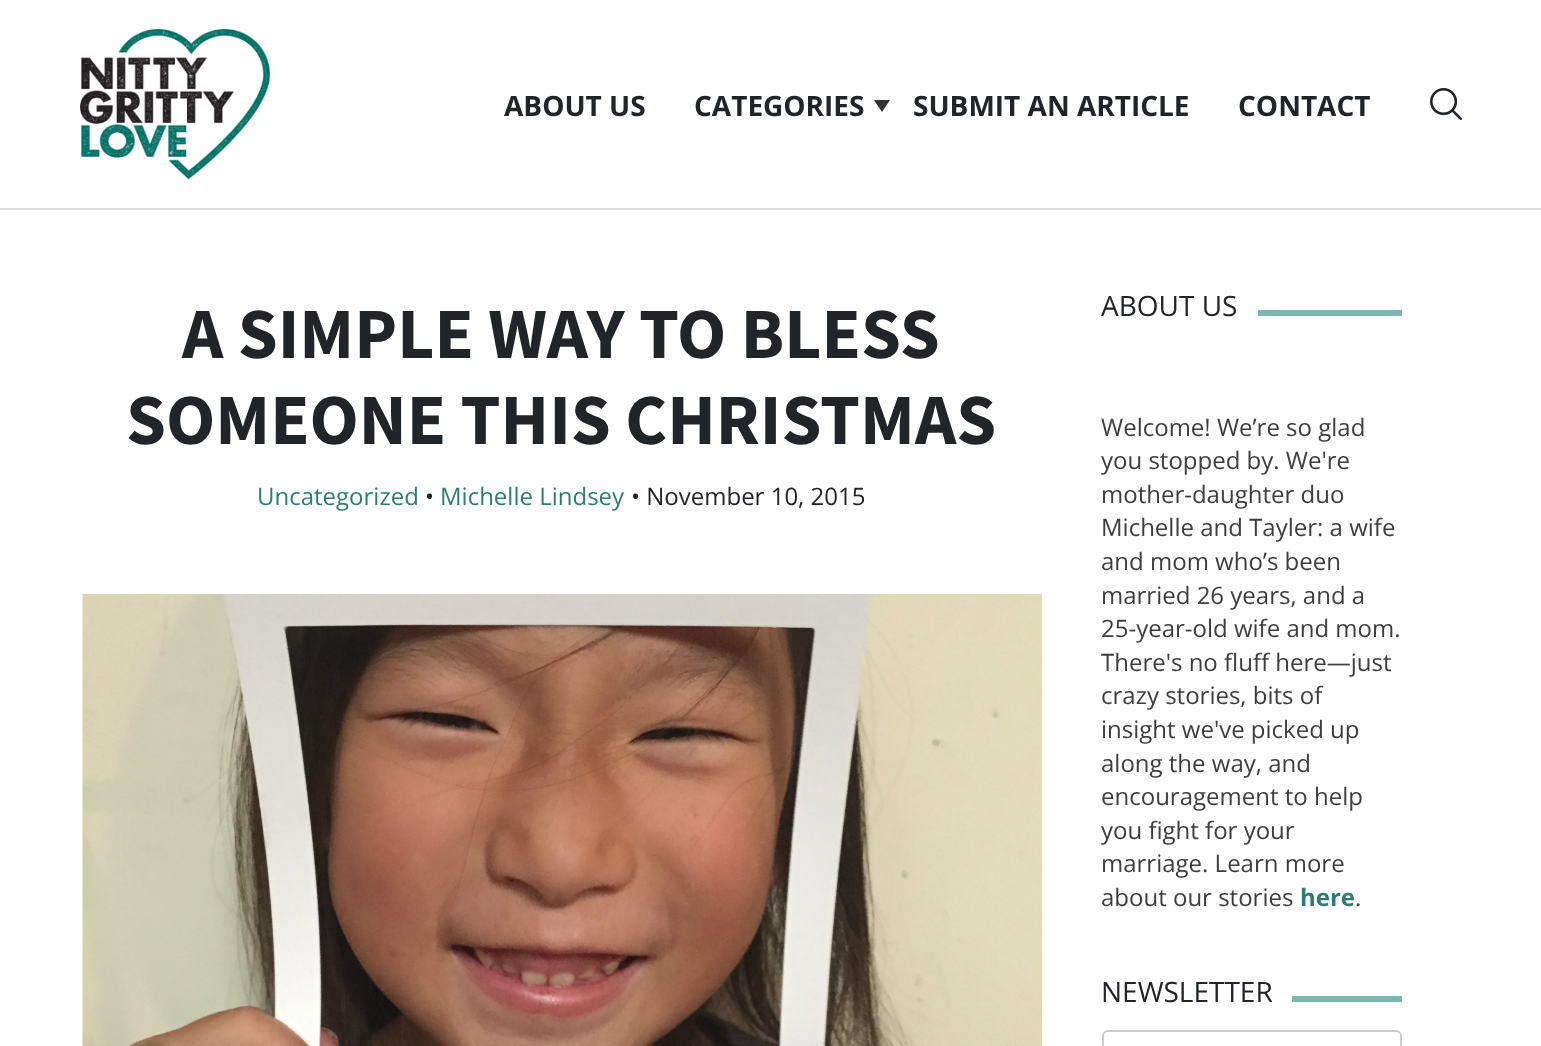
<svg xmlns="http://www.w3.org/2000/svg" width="1541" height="1046">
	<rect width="100%" height="100%" fill="#FFFFFF" />
	<image x="80" y="29" width="190" height="150" href="assets/img1.png" />
	<g font-family="Open Sans" font-size="28" font-weight="700" fill="#212529">
		<text x="504" y="116">ABOUT US</text>
		<text x="694" y="116">CATEGORIES</text>
	</g>
	<path d="M874 100H890L882 112Z" fill="#333333" />
	<g font-family="Open Sans" font-size="28" font-weight="700" fill="#212529">
		<text x="913" y="116">SUBMIT AN ARTICLE</text>
		<text x="1238" y="116">CONTACT</text>
	</g>
	<image x="1430" y="88" width="32" height="32" href="assets/img2.png" />
	<rect x="0" y="208" width="1541" height="2" fill="#DDDDDD" />
	<g font-family="Source Sans Pro" font-size="72" font-weight="700" fill="#212529">
		<text x="182" y="358">A SIMPLE WAY TO BLESS</text>
		<text x="126" y="444">SOMEONE THIS CHRISTMAS</text>
	</g>
	<text x="257" y="505" font-family="Open Sans" font-size="24" fill="#2D7E72">Uncategorized</text>
	<text x="425" y="505" font-family="Open Sans" font-size="24" fill="#212529">•</text>
	<text x="440" y="505" font-family="Open Sans" font-size="24" fill="#2D7E72">Michelle Lindsey</text>
	<text x="631" y="505" font-family="Open Sans" font-size="24" fill="#212529">• November 10, 2015</text>
	<image x="82" y="594" width="960" height="452" href="assets/img3.png" />
	<text x="1101" y="316" font-family="Open Sans" font-size="28" fill="#212529">ABOUT US</text>
	<rect x="1258" y="310" width="144" height="6" fill="#7BB8B0" />
	<g font-family="Open Sans" font-size="24" fill="#3E3E3E">
		<text x="1101" y="436">Welcome! We’re so glad</text>
		<text x="1101" y="469">you stopped by. We're</text>
		<text x="1101" y="503">mother-daughter duo</text>
		<text x="1101" y="536">Michelle and Tayler: a wife</text>
		<text x="1101" y="570">and mom who’s been</text>
		<text x="1101" y="604">married 26 years, and a</text>
		<text x="1101" y="637">25-year-old wife and mom.</text>
		<text x="1101" y="671">There's no fluff here—just</text>
		<text x="1101" y="704">crazy stories, bits of</text>
		<text x="1101" y="738">insight we've picked up</text>
		<text x="1101" y="772">along the way, and</text>
		<text x="1101" y="805">encouragement to help</text>
		<text x="1101" y="839">you fight for your</text>
		<text x="1101" y="872">marriage. Learn more</text>
		<text x="1101" y="906">about our stories</text>
	</g>
	<text x="1300" y="906" font-family="Open Sans" font-size="24" font-weight="700" fill="#2D7E72">here</text>
	<text x="1355" y="906" font-family="Open Sans" font-size="24" fill="#3E3E3E">.</text>
	<text x="1101" y="1002" font-family="Open Sans" font-size="28" fill="#212529">NEWSLETTER</text>
	<rect x="1292" y="996" width="110" height="6" fill="#7BB8B0" />
	<rect x="1103" y="1031" width="298" height="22" rx="5" fill="none" stroke="#CCCCCC" stroke-width="2" />
</svg>
